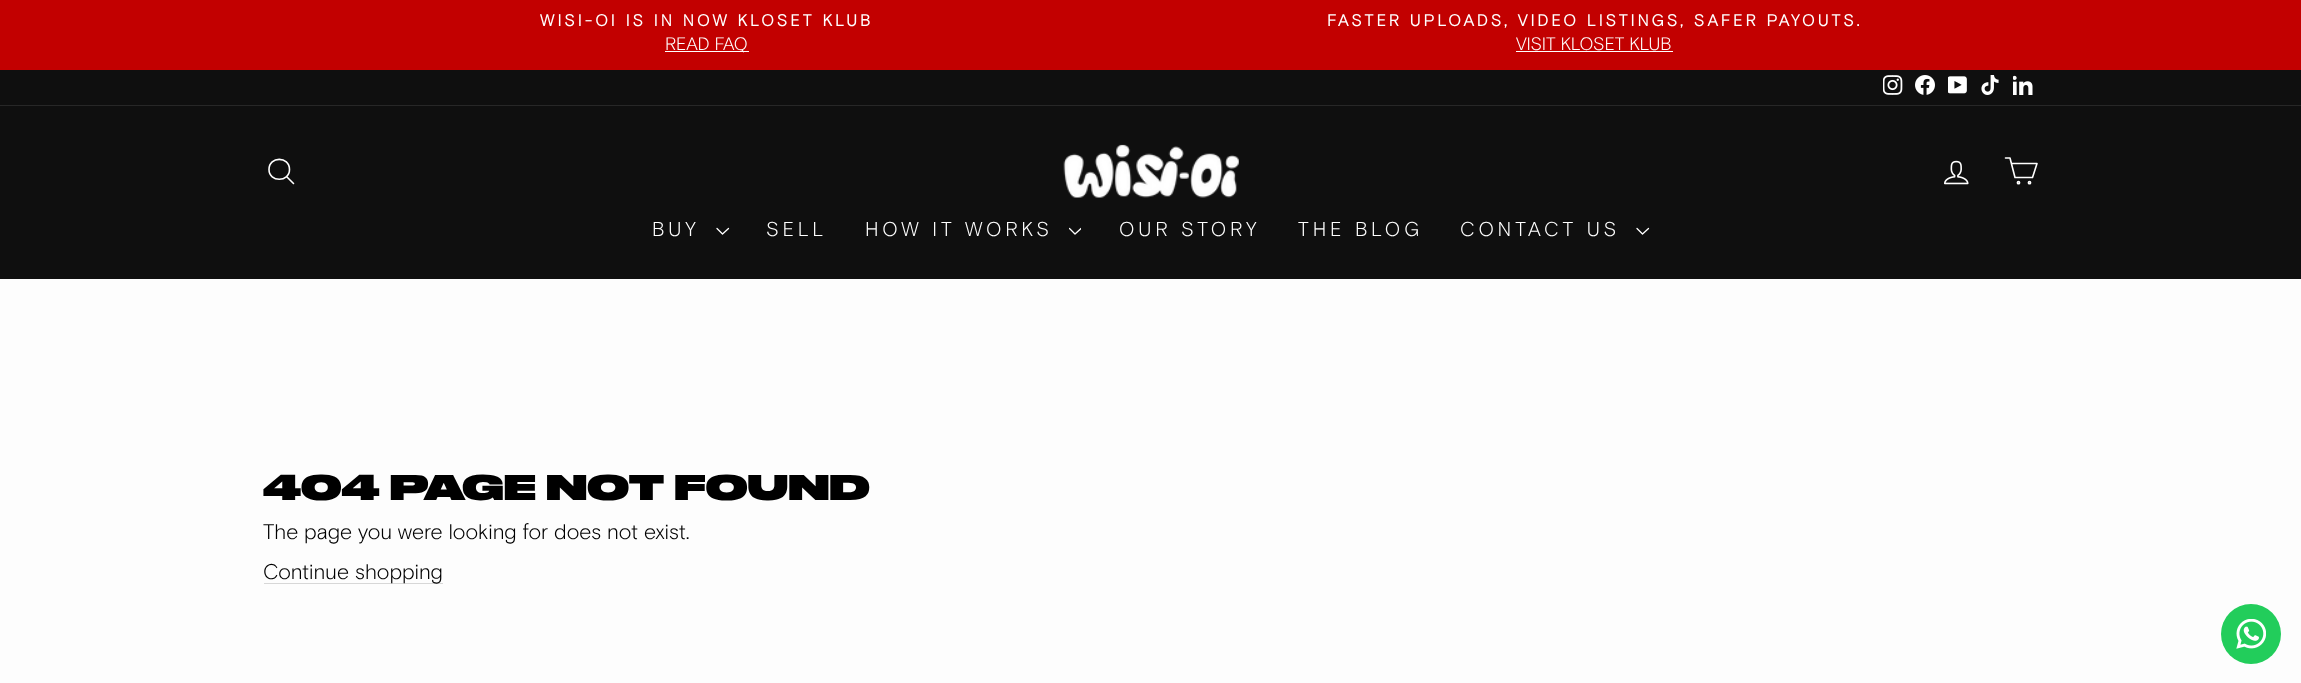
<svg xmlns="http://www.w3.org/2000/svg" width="2301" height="683">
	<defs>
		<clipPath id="clip1"><rect x="1069" y="225" width="12" height="13" /></clipPath>
	</defs>
	<rect width="100%" height="100%" fill="#FDFDFD" />
	<rect x="0" y="0" width="2301" height="70" fill="#C20000" />
	<text x="540" y="26" font-family="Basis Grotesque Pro" font-size="16.25" font-weight="700" letter-spacing="3.25" fill="#FFFFFF">WISI-OI IS IN NOW KLOSET KLUB</text>
	<rect x="665" y="51" width="84" height="1" fill="#FFFFFF" />
	<text x="665" y="50" font-family="Basis Grotesque Pro" font-size="18" font-weight="300" fill="#FFFFFF">READ FAQ</text>
	<text x="1327" y="26" font-family="Basis Grotesque Pro" font-size="16.25" font-weight="700" letter-spacing="3.25" fill="#FFFFFF">FASTER UPLOADS, VIDEO LISTINGS, SAFER PAYOUTS.</text>
	<text x="1516" y="50" font-family="Basis Grotesque Pro" font-size="18" font-weight="300" fill="#FFFFFF">VISIT KLOSET KLUB</text>
	<rect x="1516" y="51" width="157" height="1" fill="#FFFFFF" />
	<rect x="0" y="70" width="2301" height="35" fill="#0F0F0F" />
	<image x="1883" y="75" width="20" height="20" href="assets/img1.png" />
	<image x="1915" y="75" width="20" height="20" href="assets/img2.png" />
	<image x="1948" y="76" width="19" height="18" href="assets/img3.png" />
	<image x="1981" y="75" width="18" height="20" href="assets/img4.png" />
	<image x="2013" y="75" width="20" height="20" href="assets/img5.png" />
	<rect x="0" y="106" width="2301" height="173" fill="#0F0F0F" />
	<rect x="0" y="105" width="2301" height="1" fill="#272727" />
	<path d="M289.5 169.5C289.5 182.5 269 182.5 269 169.5C269 156 289.5 156 289.5 169.5ZM293.5 183.5L286.5 176.5" fill="none" stroke="#FFFFFF" stroke-width="1.6" stroke-linecap="round" stroke-linejoin="round" />
	<image x="1063" y="144" width="176" height="54" href="assets/img6.png" />
	<image x="1944" y="160" width="25" height="25" href="assets/img7.png" />
	<path d="M2011.5 163.5H2037L2032.5 177.5H2015L2010 158H2005.5" fill="none" stroke="#FFFFFF" stroke-width="1.6" stroke-linecap="round" stroke-linejoin="round" />
	<circle cx="2018.5" cy="182.7" r="1.1" fill="none" stroke="#FFFFFF" stroke-width="1.6" />
	<circle cx="2029.5" cy="182.7" r="1.1" fill="none" stroke="#FFFFFF" stroke-width="1.6" />
	<text x="652" y="236" font-family="Basis Grotesque Pro" font-size="20" font-weight="300" letter-spacing="4" fill="#FFFFFF">BUY</text>
	<path d="M717 228.5L722.5 234L728.5 228.5" fill="none" stroke="#FFFFFF" stroke-width="1.3" stroke-linecap="round" stroke-linejoin="round" />
	<g font-family="Basis Grotesque Pro" font-size="20" font-weight="300" letter-spacing="4" fill="#FFFFFF">
		<text x="766" y="236">SELL</text>
		<text x="865" y="236">HOW IT WORKS</text>
	</g>
	<g clip-path="url(#clip1)">
		<path d="M1069.5 228.5L1075 234L1081 228.5" fill="none" stroke="#FFFFFF" stroke-width="1.3" stroke-linecap="round" stroke-linejoin="round" />
	</g>
	<g font-family="Basis Grotesque Pro" font-size="20" font-weight="300" letter-spacing="4" fill="#FFFFFF">
		<text x="1119" y="236">OUR STORY</text>
		<text x="1298" y="236">THE BLOG</text>
		<text x="1460" y="236">CONTACT US</text>
	</g>
	<path d="M1637 228.5L1642.5 234L1648.5 228.5" fill="none" stroke="#FFFFFF" stroke-width="1.3" stroke-linecap="round" stroke-linejoin="round" />
	<text x="263" y="500" font-family="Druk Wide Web" font-size="33.75" font-weight="900" fill="#000000">404 PAGE NOT FOUND</text>
	<text x="263" y="539" font-family="Basis Grotesque Pro" font-size="21.25" font-weight="300" fill="#000000">The page you were looking for does not exist.</text>
	<rect x="264" y="583" width="179" height="1" fill="#D7D7D7" />
	<text x="263" y="579" font-family="Basis Grotesque Pro" font-size="21.25" font-weight="300" fill="#000000">Continue shopping</text>
	<circle cx="2251" cy="634" r="30" fill="#22CD5B" />
	<image x="2236" y="619" width="30" height="30" href="assets/img8.png" />
</svg>
